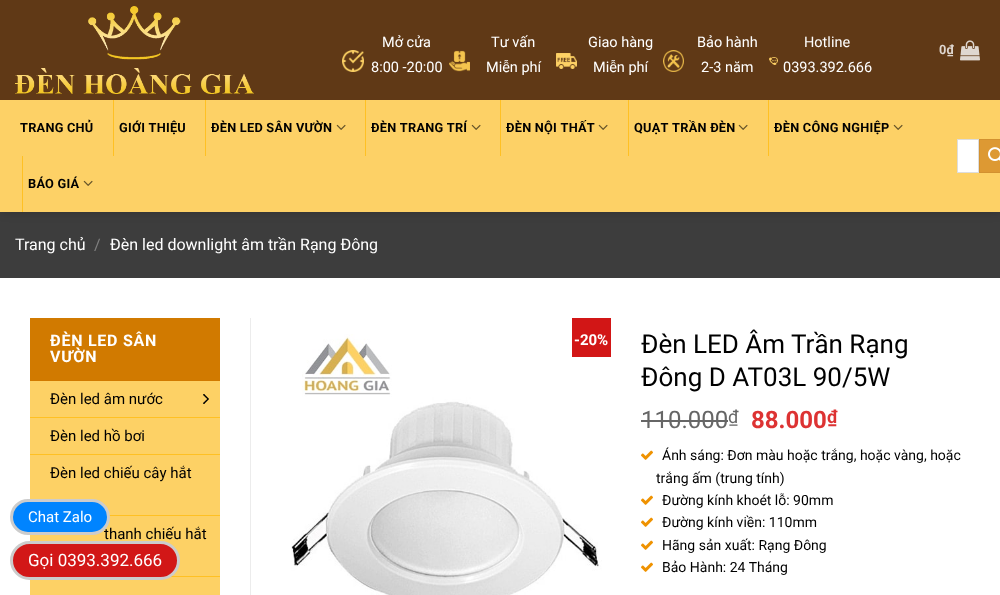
<svg xmlns="http://www.w3.org/2000/svg" width="1000" height="595">
	<rect width="100%" height="100%" fill="#FFFFFF" />
	<rect x="0" y="212" width="1000" height="66" fill="#3D3D3D" />
	<rect x="1" y="1" width="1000" height="212" fill="#000000" fill-opacity="0.15" filter="blur(5px)" />
	<rect x="0" y="0" width="1000" height="100" fill="#603916" />
	<image x="15" y="6" width="239" height="88" href="assets/img1.png" />
	<image x="342" y="50" width="22" height="22" href="assets/img2.png" />
	<g font-family="Roboto" font-size="14.5" fill="#FFFFFF">
		<text x="382" y="47">Mở cửa</text>
		<text x="371" y="72">8:00 -20:00</text>
	</g>
	<image x="449" y="50" width="21" height="22" href="assets/img3.png" />
	<g font-family="Roboto" font-size="14.5" fill="#FFFFFF">
		<text x="491" y="47">Tư vấn</text>
		<text x="486" y="72">Miễn phí</text>
	</g>
	<image x="556" y="53" width="21" height="16" href="assets/img4.png" />
	<g font-family="Roboto" font-size="14.5" fill="#FFFFFF">
		<text x="588" y="47">Giao hàng</text>
		<text x="593" y="72">Miễn phí</text>
	</g>
	<image x="663" y="50" width="21" height="22" href="assets/img5.png" />
	<g font-family="Roboto" font-size="14.5" fill="#FFFFFF">
		<text x="697" y="47">Bảo hành</text>
		<text x="701" y="72">2-3 năm</text>
	</g>
	<image x="769" y="57" width="9" height="8" href="assets/img6.png" />
	<g font-family="Roboto" font-size="14.5" fill="#FFFFFF">
		<text x="804" y="47">Hotline</text>
		<text x="783" y="72">0393.392.666</text>
	</g>
	<text x="939" y="54" font-family="Roboto" font-size="12.75" font-weight="700" letter-spacing="0.25" fill="#DFD7D0">0₫</text>
	<image x="960" y="40" width="20" height="21" href="assets/img7.png" />
	<rect x="0" y="100" width="1000" height="112" fill="#FDD166" />
	<text x="20" y="132" font-family="Roboto" font-size="12.75" font-weight="700" letter-spacing="0.25" fill="#000000">TRANG CHỦ</text>
	<rect x="113" y="100" width="1" height="56" fill="#FFC023" />
	<text x="119" y="132" font-family="Roboto" font-size="12.75" font-weight="700" letter-spacing="0.25" fill="#000000">GIỚI THIỆU</text>
	<rect x="205" y="100" width="1" height="56" fill="#FFC023" />
	<text x="211" y="132" font-family="Roboto" font-size="12.75" font-weight="700" letter-spacing="0.25" fill="#000000">ĐÈN LED SÂN VƯỜN</text>
	<image x="336" y="124" width="10" height="6" href="assets/img8.png" />
	<rect x="365" y="100" width="1" height="56" fill="#FFC023" />
	<text x="371" y="132" font-family="Roboto" font-size="12.75" font-weight="700" letter-spacing="0.25" fill="#000000">ĐÈN TRANG TRÍ</text>
	<image x="471" y="124" width="10" height="6" href="assets/img8.png" />
	<rect x="500" y="100" width="1" height="56" fill="#FFC023" />
	<text x="506" y="132" font-family="Roboto" font-size="12.75" font-weight="700" letter-spacing="0.25" fill="#000000">ĐÈN NỘI THẤT</text>
	<image x="598" y="124" width="10" height="6" href="assets/img8.png" />
	<rect x="628" y="100" width="1" height="56" fill="#FFC023" />
	<text x="634" y="132" font-family="Roboto" font-size="12.75" font-weight="700" letter-spacing="0.25" fill="#000000">QUẠT TRẦN ĐÈN</text>
	<image x="738" y="124" width="10" height="6" href="assets/img8.png" />
	<rect x="768" y="100" width="1" height="56" fill="#FFC023" />
	<text x="774" y="132" font-family="Roboto" font-size="12.75" font-weight="700" letter-spacing="0.25" fill="#000000">ĐÈN CÔNG NGHIỆP</text>
	<image x="893" y="124" width="10" height="6" href="assets/img8.png" />
	<rect x="22" y="156" width="1" height="56" fill="#FFC023" />
	<text x="28" y="188" font-family="Roboto" font-size="12.75" font-weight="700" letter-spacing="0.25" fill="#000000">BÁO GIÁ</text>
	<image x="83" y="180" width="10" height="6" href="assets/img8.png" />
	<rect x="957.5" y="139.5" width="21" height="33" fill="#FFFFFF" stroke="#DDDDDD" />
	<rect x="979.5" y="139.5" width="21" height="33" fill="#DD9933" stroke="#D29130" />
	<image x="988" y="147" width="12" height="14" href="assets/img9.png" />
	<text x="15" y="250" font-family="Roboto" font-size="16" fill="#FFFFFF">Trang chủ</text>
	<text x="94" y="250" font-family="Roboto" font-size="16" fill="#818181">/</text>
	<text x="110" y="250" font-family="Roboto" font-size="16" fill="#FFFFFF">Đèn led downlight âm trần Rạng Đông</text>
	<rect x="30" y="318" width="190" height="63" fill="#D17A00" />
	<g font-family="Roboto" font-size="16" font-weight="700" letter-spacing="0.75" fill="#FFFFFF">
		<text x="50" y="346">ĐÈN LED SÂN</text>
		<text x="50" y="362">VƯỜN</text>
	</g>
	<rect x="30" y="381" width="190" height="36" fill="#FDD165" />
	<image x="203" y="394" width="6" height="10" href="assets/img10.png" />
	<rect x="30" y="417" width="190" height="1" fill="#FFC023" />
	<text x="50" y="404" font-family="Roboto" font-size="15" fill="#000000">Đèn led âm nước</text>
	<rect x="30" y="418" width="190" height="36" fill="#FDD165" />
	<rect x="30" y="454" width="190" height="1" fill="#FFC023" />
	<text x="50" y="441" font-family="Roboto" font-size="15" fill="#000000">Đèn led hồ bơi</text>
	<rect x="30" y="455" width="190" height="60" fill="#FDD165" />
	<rect x="109" y="515" width="111" height="1" fill="#FFC023" />
	<text x="50" y="478" font-family="Roboto" font-size="15" fill="#000000">Đèn led chiếu cây hắt</text>
	<rect x="30" y="516" width="190" height="60" fill="#FDD165" />
	<rect x="170" y="576" width="50" height="1" fill="#FFC023" />
	<text x="104" y="539" font-family="Roboto" font-size="15" fill="#000000">thanh chiếu hắt</text>
	<rect x="30" y="577" width="190" height="18" fill="#FDD165" />
	<rect x="250" y="318" width="1" height="277" fill="#ECECEC" />
	<image x="291" y="334" width="311" height="261" href="assets/img11.png" />
	<rect x="572" y="318" width="39" height="39" fill="#D21616" />
	<text x="574" y="345" font-family="Roboto" font-size="15" font-weight="700" fill="#FFFFFF">-20%</text>
	<g font-family="Roboto" font-size="26" fill="#000000">
		<text x="641" y="353">Đèn LED Âm Trần Rạng</text>
		<text x="641" y="386">Đông D AT03L 90/5W</text>
	</g>
	<text x="641" y="428" font-family="Roboto" font-size="24" fill="#666666">110.000</text>
	<rect x="641" y="420" width="87" height="2" fill="#666666" />
	<text x="728" y="423" font-family="Roboto" font-size="18" fill="#666666">₫</text>
	<text x="751" y="428" font-family="Roboto" font-size="24" font-weight="700" fill="#DD3333">88.000</text>
	<text x="827" y="423" font-family="Roboto" font-size="18" font-weight="700" fill="#DD3333">₫</text>
	<image x="641" y="450" width="12" height="10" href="assets/img12.png" />
	<g font-family="Roboto" font-size="14" fill="#000000">
		<text x="662" y="460">Ánh sáng: Đơn màu hoặc trắng, hoặc vàng, hoặc</text>
		<text x="656" y="483">trắng ấm (trung tính)</text>
	</g>
	<image x="641" y="495" width="12" height="10" href="assets/img12.png" />
	<text x="662" y="505" font-family="Roboto" font-size="14" fill="#000000">Đường kính khoét lỗ: 90mm</text>
	<image x="641" y="517" width="12" height="10" href="assets/img12.png" />
	<text x="662" y="527" font-family="Roboto" font-size="14" fill="#000000">Đường kính viền: 110mm</text>
	<image x="641" y="540" width="12" height="10" href="assets/img12.png" />
	<text x="662" y="550" font-family="Roboto" font-size="14" fill="#000000">Hãng sản xuất: Rạng Đông</text>
	<image x="641" y="562" width="12" height="10" href="assets/img12.png" />
	<text x="662" y="572" font-family="Roboto" font-size="14" fill="#000000">Bảo Hành: 24 Tháng</text>
	<rect x="11.5" y="500.5" width="97" height="33" rx="16.5" fill="#0084FF" stroke="#CCCCCC" stroke-width="3" />
	<text x="28" y="522" font-family="Roboto" font-size="15" fill="#FFFFFF">Chat Zalo</text>
	<rect x="11.5" y="542.5" width="167" height="36" rx="18" fill="#D21717" stroke="#CCCCCC" stroke-width="3" />
	<text x="28" y="566" font-family="Roboto" font-size="17" fill="#FFFFFF">Gọi 0393.392.666</text>
</svg>
